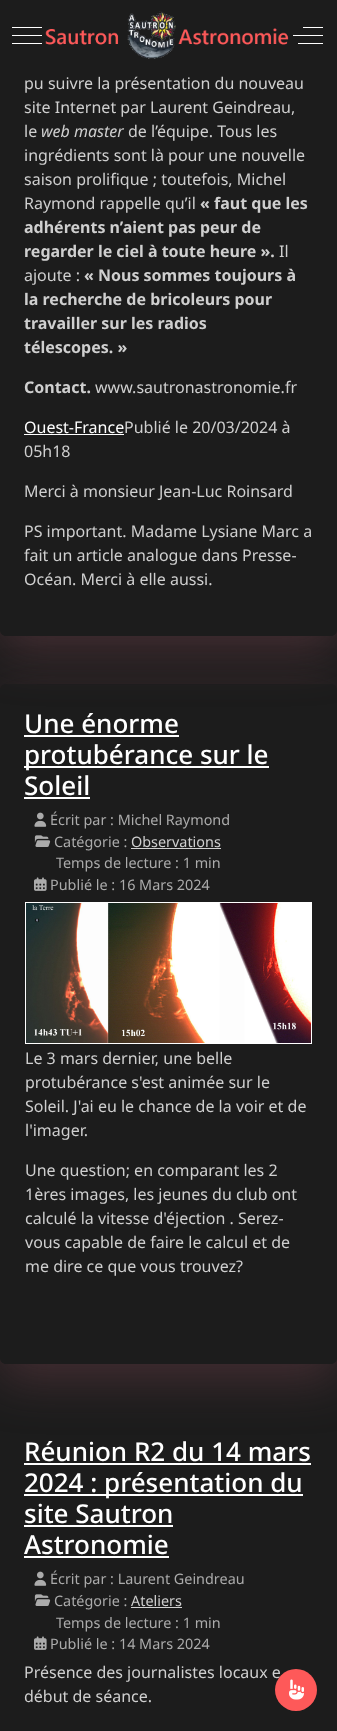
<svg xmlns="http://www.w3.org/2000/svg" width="337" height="1731">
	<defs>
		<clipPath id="clip1"><path d="M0 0H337V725H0ZM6-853H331C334.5-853 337-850.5 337-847V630C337 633.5 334.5 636 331 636H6C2.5 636 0 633.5 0 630V-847C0-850.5 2.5-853 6-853Z" clip-rule="evenodd" /></clipPath>
		<clipPath id="clip2"><path d="M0 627H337V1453H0ZM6 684H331C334.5 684 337 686.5 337 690V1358C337 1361.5 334.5 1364 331 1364H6C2.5 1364 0 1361.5 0 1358V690C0 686.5 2.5 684 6 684Z" clip-rule="evenodd" /></clipPath>
	</defs>
	<rect width="100%" height="100%" fill="#1C1C1C" />
	<g clip-path="url(#clip1)">
		<rect x="0" y="-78" width="337" height="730" rx="6" fill="#693E47" fill-opacity="0.5" filter="blur(24px)" />
	</g>
	<rect x="12" y="35" width="30" height="1" fill="#FFFFFF" />
	<rect x="12" y="27" width="30" height="1" fill="#FFFFFF" />
	<rect x="12" y="43" width="30" height="1" fill="#FFFFFF" />
	<image x="45" y="11" width="244" height="48" href="assets/img1.png" />
	<rect x="293" y="35" width="30" height="1" fill="#FFFFFF" />
	<rect x="303" y="27" width="20" height="1" fill="#FFFFFF" />
	<rect x="298" y="43" width="25" height="1" fill="#FFFFFF" />
	<g font-family="Noto Sans" font-size="16" fill="#CFCFCF">
		<text x="24" y="89">pu suivre la présentation du nouveau</text>
		<text x="24" y="113">site Internet par Laurent Geindreau,</text>
		<text x="24" y="137">le</text>
	</g>
	<text x="41" y="137" font-family="Noto Sans" font-size="16" font-style="italic" fill="#CFCFCF">web master</text>
	<g font-family="Noto Sans" font-size="16" fill="#CFCFCF">
		<text x="128" y="137">de l’équipe. Tous les</text>
		<text x="24" y="161">ingrédients sont là pour une nouvelle</text>
		<text x="24" y="185">saison prolifique ; toutefois, Michel</text>
		<text x="24" y="209">Raymond rappelle qu’il</text>
	</g>
	<g font-family="Noto Sans" font-size="16" font-weight="700" fill="#CFCFCF">
		<text x="200" y="209">« faut que les</text>
		<text x="24" y="233">adhérents n’aient pas peur de</text>
		<text x="24" y="257">regarder le ciel à toute heure ».</text>
	</g>
	<g font-family="Noto Sans" font-size="16" fill="#CFCFCF">
		<text x="279" y="257">Il</text>
		<text x="24" y="281">ajoute :</text>
	</g>
	<g font-family="Noto Sans" font-size="16" font-weight="700" fill="#CFCFCF">
		<text x="84" y="281">« Nous sommes toujours à</text>
		<text x="24" y="305">la recherche de bricoleurs pour</text>
		<text x="24" y="329">travailler sur les radios</text>
		<text x="24" y="353">télescopes. »</text>
		<text x="24" y="393">Contact.</text>
	</g>
	<text x="95" y="393" font-family="Noto Sans" font-size="16" fill="#CFCFCF">www.sautronastronomie.fr</text>
	<text x="24" y="433" font-family="Noto Sans" font-size="16" fill="#FFFFFF">Ouest-France</text>
	<rect x="24" y="434" width="100" height="1" fill="#FFFFFF" />
	<g font-family="Noto Sans" font-size="16" fill="#CFCFCF">
		<text x="124" y="433">Publié le 20/03/2024 à</text>
		<text x="24" y="457">05h18</text>
		<text x="24" y="497">Merci à monsieur Jean-Luc Roinsard</text>
		<text x="24" y="537">PS important. Madame Lysiane Marc a</text>
		<text x="24" y="561">fait un article analogue dans Presse-</text>
		<text x="24" y="585">Océan. Merci à elle aussi.</text>
	</g>
	<g clip-path="url(#clip2)">
		<rect x="0" y="700" width="337" height="680" rx="6" fill="#693E47" fill-opacity="0.5" filter="blur(24px)" />
	</g>
	<text x="24" y="733" font-family="Noto Sans" font-size="26" font-weight="500" fill="#FFFFFF">Une énorme</text>
	<rect x="24" y="735" width="155" height="2" fill="#FFFFFF" />
	<rect x="24" y="766" width="245" height="2" fill="#FFFFFF" />
	<g font-family="Noto Sans" font-size="26" font-weight="500" fill="#FFFFFF">
		<text x="24" y="764">protubérance sur le</text>
		<text x="24" y="795">Soleil</text>
	</g>
	<rect x="24" y="797" width="66" height="2" fill="#FFFFFF" />
	<image x="34" y="812" width="13" height="15" href="assets/img2.png" />
	<text x="50" y="825" font-family="Noto Sans" font-size="14.4" fill="#ABABAB">Écrit par : Michel Raymond</text>
	<image x="34" y="835" width="17" height="12" href="assets/img3.png" />
	<text x="54" y="847" font-family="Noto Sans" font-size="14.4" fill="#ABABAB">Catégorie :</text>
	<text x="131" y="847" font-family="Noto Sans" font-size="14.4" fill="#CFCFCF">Observations</text>
	<rect x="131" y="848" width="90" height="1" fill="#D2D2D2" />
	<text x="56" y="868" font-family="Noto Sans" font-size="14.4" fill="#ABABAB">Temps de lecture : 1 min</text>
	<image x="34" y="877" width="13" height="14" href="assets/img4.png" />
	<text x="50" y="890" font-family="Noto Sans" font-size="14.4" fill="#ABABAB">Publié le : 16 Mars 2024</text>
	<rect x="25.5" y="902.5" width="286" height="141" fill="none" stroke="#FFFFFF" />
	<image x="26" y="903" width="285" height="140" href="assets/img5.png" />
	<g font-family="Noto Sans" font-size="16" fill="#CFCFCF">
		<text x="25" y="1064">Le 3 mars dernier, une belle</text>
		<text x="25" y="1088">protubérance s'est animée sur le</text>
		<text x="25" y="1112">Soleil. J'ai eu le chance de la voir et de</text>
		<text x="25" y="1136">l'imager.</text>
		<text x="25" y="1176">Une question; en comparant les 2</text>
		<text x="25" y="1200">1ères images, les jeunes du club ont</text>
		<text x="25" y="1224">calculé la vitesse d'éjection . Serez-</text>
		<text x="25" y="1248">vous capable de faire le calcul et de</text>
		<text x="25" y="1272">me dire ce que vous trouvez?</text>
	</g>
	<text x="24" y="1461" font-family="Noto Sans" font-size="26" font-weight="500" fill="#FFFFFF">Réunion R2 du 14 mars</text>
	<rect x="24" y="1463" width="287" height="2" fill="#FFFFFF" />
	<rect x="24" y="1494" width="279" height="2" fill="#FFFFFF" />
	<g font-family="Noto Sans" font-size="26" font-weight="500" fill="#FFFFFF">
		<text x="24" y="1492">2024 : présentation du</text>
		<text x="24" y="1523">site Sautron</text>
	</g>
	<rect x="24" y="1525" width="149" height="2" fill="#FFFFFF" />
	<text x="24" y="1554" font-family="Noto Sans" font-size="26" font-weight="500" fill="#FFFFFF">Astronomie</text>
	<rect x="24" y="1556" width="145" height="2" fill="#FFFFFF" />
	<image x="34" y="1571" width="13" height="15" href="assets/img2.png" />
	<text x="50" y="1584" font-family="Noto Sans" font-size="14.4" fill="#ABABAB">Écrit par : Laurent Geindreau</text>
	<image x="34" y="1594" width="17" height="12" href="assets/img3.png" />
	<text x="54" y="1606" font-family="Noto Sans" font-size="14.4" fill="#ABABAB">Catégorie :</text>
	<text x="131" y="1606" font-family="Noto Sans" font-size="14.4" fill="#CFCFCF">Ateliers</text>
	<rect x="131" y="1607" width="51" height="1" fill="#D2D2D2" />
	<text x="56" y="1628" font-family="Noto Sans" font-size="14.4" fill="#ABABAB">Temps de lecture : 1 min</text>
	<image x="34" y="1636" width="13" height="14" href="assets/img4.png" />
	<text x="50" y="1649" font-family="Noto Sans" font-size="14.4" fill="#ABABAB">Publié le : 14 Mars 2024</text>
	<g font-family="Noto Sans" font-size="16" fill="#CFCFCF">
		<text x="24" y="1678">Présence des journalistes locaux e</text>
		<text x="24" y="1702">début de séance.</text>
	</g>
	<circle cx="296" cy="1690" r="21" fill="#FE5959" />
	<image x="289" y="1679" width="15" height="21" href="assets/img6.png" />
</svg>
